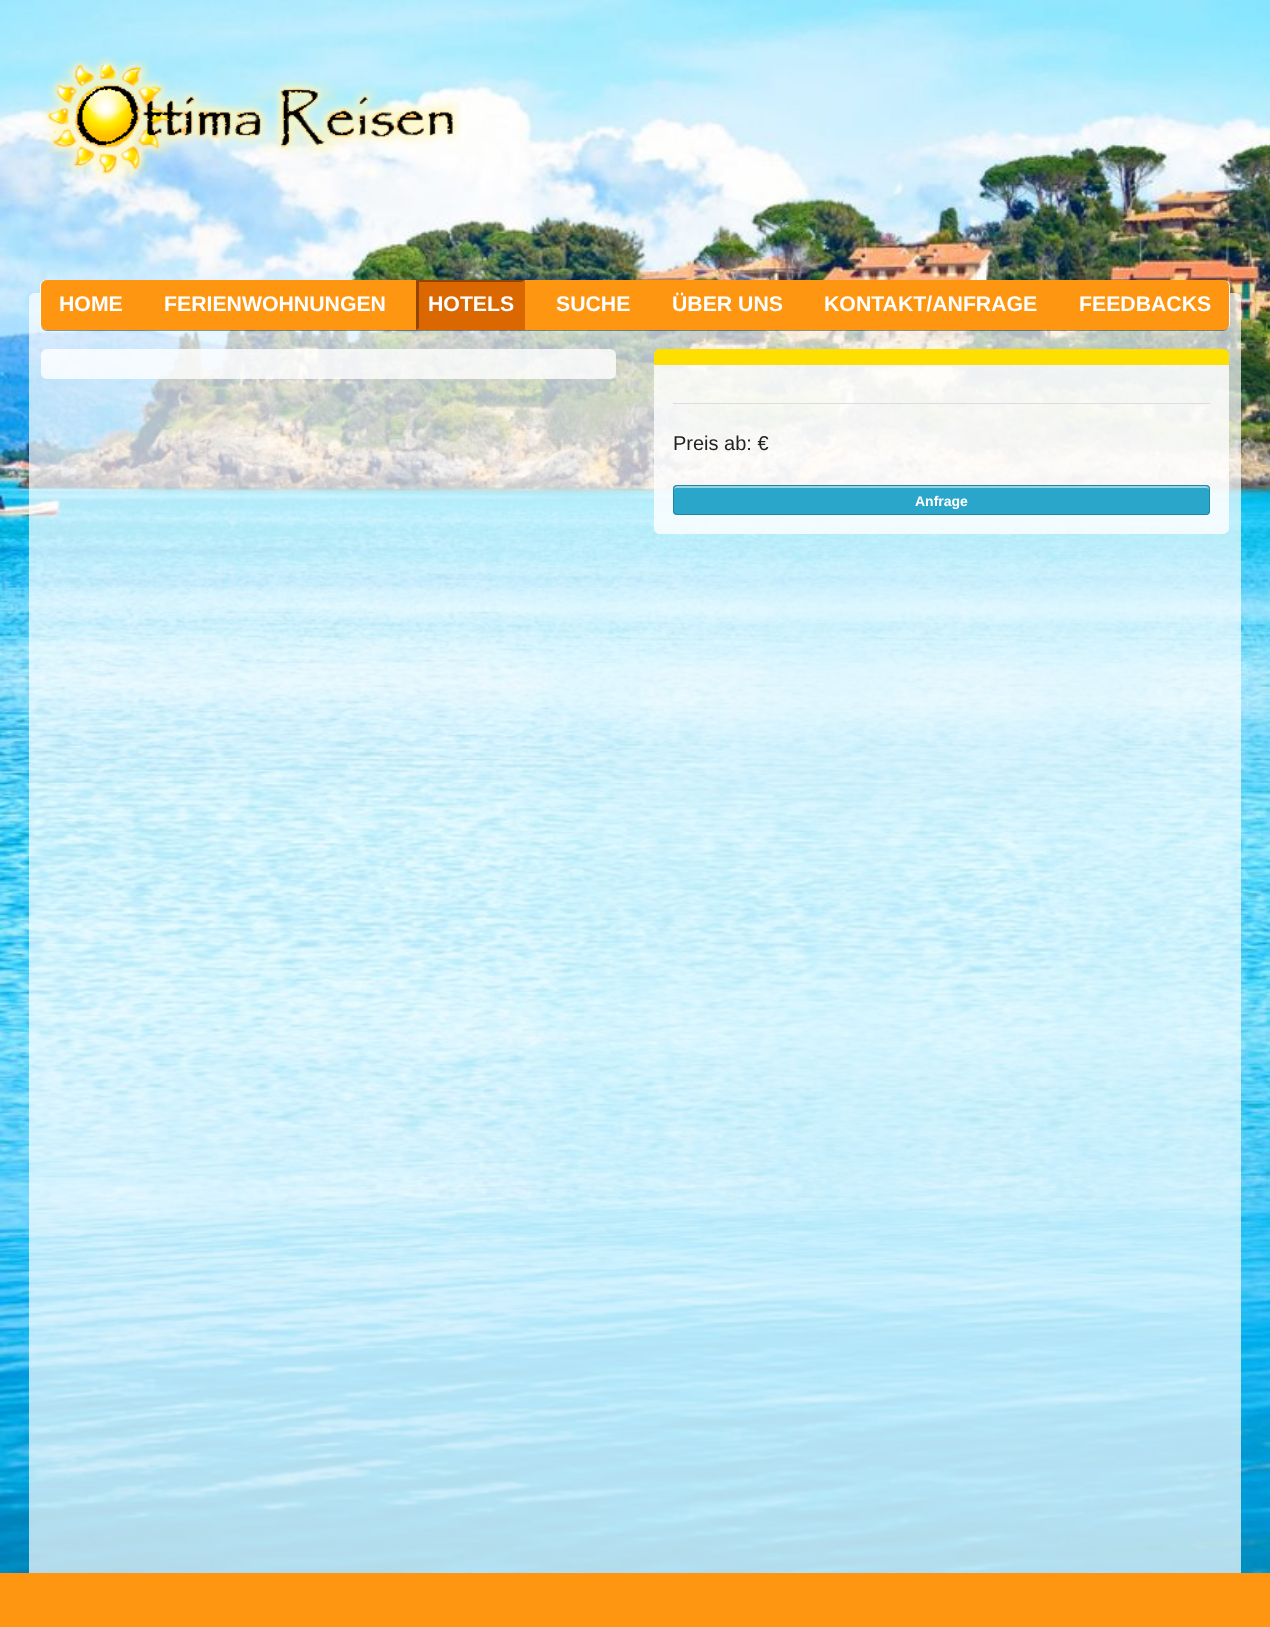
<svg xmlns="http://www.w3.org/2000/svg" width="1270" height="1627">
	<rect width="100%" height="100%" fill="#FFFFFF" />
	<image x="0" y="0" width="1270" height="1573" href="assets/img1.png" />
	<image x="41" y="56" width="421" height="129" href="assets/img2.png" />
	<path d="M35 293H1235C1238.5 293 1241 295.5 1241 299V1573H29V299C29 295.5 31.5 293 35 293Z" fill="#FFFFFF" fill-opacity="0.7" />
	<path d="M46 280C43 280 40 283 40 286V324C40 327 43 330 46 330H48C44 330 41 327 41 324V286C41 283 44 280 48 280Z" fill="#FFFFFF" />
	<path d="M1222 330C1231 330 1230 325 1230 318V292C1230 285 1231 280 1222 280C1226 280 1229 283 1229 286V324C1229 327 1226 330 1222 330Z" fill="#FFFFFF" />
	<path d="M41 285V287V325C41 328 44 331 47 331H1223C1226 331 1229 328 1229 325V287V285V324C1229 327 1226 330 1222 330H48C44 330 41 327 41 324Z" fill="#000000" fill-opacity="0.4" />
	<rect x="41" y="280" width="1188" height="50" rx="6" fill="#FF9611" />
	<g font-family="Liberation Sans" font-size="21.25" font-weight="700" fill="#FFFFFF">
		<text x="59" y="311">HOME</text>
		<text x="164" y="311">FERIENWOHNUNGEN</text>
	</g>
	<rect x="416" y="280" width="109" height="50" fill="#DA6700" />
	<path d="M416 280H525L522 282H419Z" fill="#914500" />
	<path d="M525 280V330L522 328V282Z" fill="#DA6700" />
	<path d="M416 330V280L419 282V328Z" fill="#914500" />
	<g font-family="Liberation Sans" font-size="21.25" font-weight="700" fill="#FFFFFF">
		<text x="428" y="311">HOTELS</text>
		<text x="556" y="311">SUCHE</text>
		<text x="672" y="311">ÜBER UNS</text>
		<text x="824" y="311">KONTAKT/ANFRAGE</text>
		<text x="1079" y="311">FEEDBACKS</text>
	</g>
	<rect x="41" y="349" width="575" height="30" rx="6" fill="#FFFFFF" fill-opacity="0.8" />
	<path d="M660 349H1223C1226.5 349 1229 351.5 1229 355V365H654V355C654 351.5 656.5 349 660 349Z" fill="#FFDF00" />
	<path d="M654 365H1229V528C1229 531.5 1226.5 534 1223 534H660C656.5 534 654 531.5 654 528Z" fill="#FFFFFF" fill-opacity="0.8" />
	<rect x="673" y="403" width="537" height="1" fill="#DDDDDD" />
	<text x="673" y="450" font-family="Liberation Sans" font-size="20" fill="#222222">Preis ab: €</text>
	<rect x="673" y="485" width="537" height="30" rx="4" fill="#2BA6CB" />
	<path d="M676 488H1206C1208 488 1209 489 1209 490V488C1209 487 1208 486 1206 486H676C675 486 674 487 674 488V490C674 489 675 488 676 488Z" fill="#95D3E5" />
	<rect x="673.5" y="485.5" width="536" height="29" rx="3.5" fill="none" stroke="#2284A1" />
	<text x="915" y="506" font-family="Liberation Sans" font-size="14" font-weight="700" fill="#FFFFFF">Anfrage</text>
	<rect x="0" y="1573" width="1270" height="54" fill="#FF9611" />
</svg>
